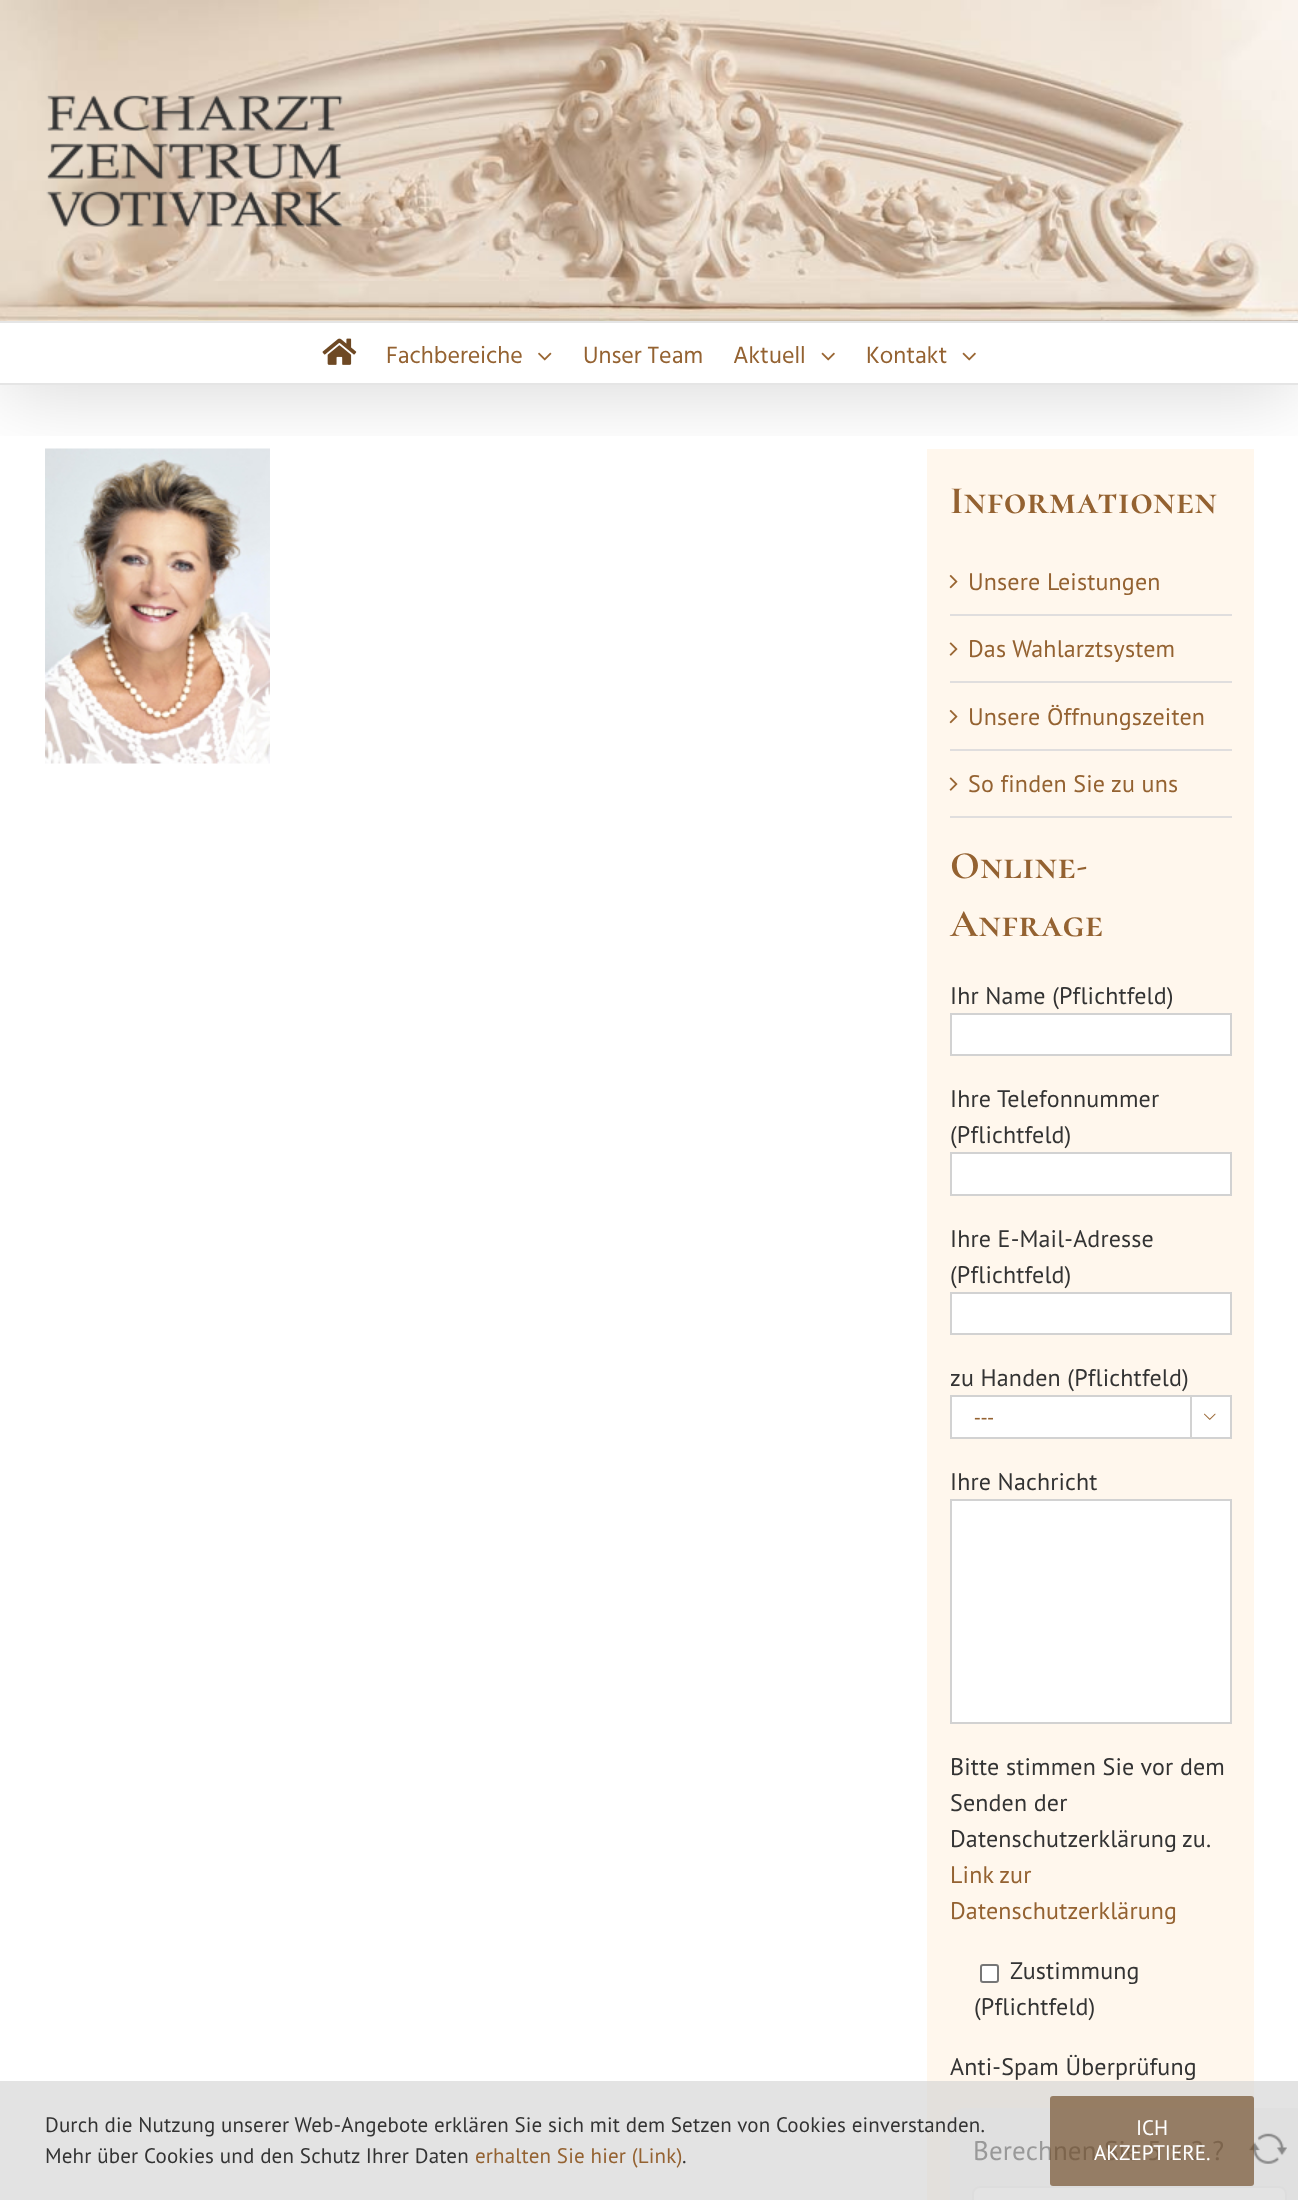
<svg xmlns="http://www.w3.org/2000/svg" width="1298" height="2200">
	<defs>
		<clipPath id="clip1"><rect x="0" y="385" width="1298" height="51" /></clipPath>
	</defs>
	<rect width="100%" height="100%" fill="#FFFFFF" />
	<rect x="0" y="2081" width="1298" height="119" fill="#E3E3E3" />
	<image x="45" y="448" width="225" height="316" href="assets/img6.png" />
	<rect x="927" y="449" width="327" height="1632" fill="#FFF7ED" />
	<g clip-path="url(#clip1)">
		<rect x="3" y="18" width="1293" height="378" fill="#000000" fill-opacity="0.14" filter="blur(37.5px)" />
	</g>
	<image x="0" y="0" width="1298" height="321" href="assets/img1.png" />
	<rect x="0" y="321" width="1298" height="2" fill="#E5E5E5" />
	<image x="46" y="95" width="297" height="132" href="assets/img2.png" />
	<rect x="0" y="383" width="1298" height="2" fill="#E5E5E5" />
	<image x="322" y="338" width="35" height="27" href="assets/img3.png" />
	<text x="386" y="363" font-family="Hind" font-size="24" fill="#946231">Fachbereiche</text>
	<image x="538" y="352" width="14" height="9" href="assets/img4.png" />
	<g font-family="Hind" font-size="24" fill="#946231">
		<text x="583" y="363">Unser Team</text>
		<text x="733" y="363">Aktuell</text>
	</g>
	<image x="821" y="352" width="14" height="9" href="assets/img5.png" />
	<text x="866" y="363" font-family="Hind" font-size="24" fill="#946231">Kontakt</text>
	<image x="962" y="352" width="14" height="9" href="assets/img5.png" />
	<rect x="927" y="2081" width="327" height="119" fill="#E3E0DC" />
	<text x="950" y="513" font-family="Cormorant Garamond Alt" font-size="39" font-weight="700" letter-spacing="0.75" fill="#946231">Informationen</text>
	<rect x="950" y="614" width="282" height="2" fill="#E0DEDE" />
	<image x="949" y="574" width="9" height="15" href="assets/img7.png" />
	<text x="968" y="590" font-family="PT Sans" font-size="24" letter-spacing="0.15" fill="#946231">Unsere Leistungen</text>
	<rect x="950" y="681" width="282" height="2" fill="#E0DEDE" />
	<image x="949" y="642" width="9" height="14" href="assets/img8.png" />
	<text x="968" y="657" font-family="PT Sans" font-size="24" letter-spacing="0.15" fill="#946231">Das Wahlarztsystem</text>
	<rect x="950" y="749" width="282" height="2" fill="#E0DEDE" />
	<image x="949" y="709" width="9" height="15" href="assets/img7.png" />
	<text x="968" y="725" font-family="PT Sans" font-size="24" letter-spacing="0.15" fill="#946231">Unsere Öffnungszeiten</text>
	<rect x="950" y="816" width="282" height="2" fill="#E0DEDE" />
	<image x="949" y="777" width="9" height="14" href="assets/img8.png" />
	<text x="968" y="792" font-family="PT Sans" font-size="24" letter-spacing="0.15" fill="#946231">So finden Sie zu uns</text>
	<g font-family="Cormorant Garamond Alt" font-size="39" font-weight="700" letter-spacing="0.75" fill="#946231">
		<text x="950" y="878">Online-</text>
		<text x="950" y="936">Anfrage</text>
	</g>
	<text x="950" y="1004" font-family="PT Sans" font-size="24" letter-spacing="0.15" fill="#333333">Ihr Name (Pflichtfeld)</text>
	<rect x="951" y="1014" width="280" height="41" fill="#FFFFFF" stroke="#D2D2D2" stroke-width="2" />
	<g font-family="PT Sans" font-size="24" letter-spacing="0.15" fill="#333333">
		<text x="950" y="1107">Ihre Telefonnummer</text>
		<text x="950" y="1143">(Pflichtfeld)</text>
	</g>
	<rect x="951" y="1153" width="280" height="42" fill="#FFFFFF" stroke="#D2D2D2" stroke-width="2" />
	<g font-family="PT Sans" font-size="24" letter-spacing="0.15" fill="#333333">
		<text x="950" y="1247">Ihre E-Mail-Adresse</text>
		<text x="950" y="1283">(Pflichtfeld)</text>
	</g>
	<rect x="951" y="1293" width="280" height="41" fill="#FFFFFF" stroke="#D2D2D2" stroke-width="2" />
	<text x="950" y="1386" font-family="PT Sans" font-size="24" letter-spacing="0.15" fill="#333333">zu Handen (Pflichtfeld)</text>
	<rect x="951" y="1396" width="280" height="42" fill="#FFFFFF" stroke="#D2D2D2" stroke-width="2" />
	<text x="974" y="1424" font-family="Liberation Sans" font-size="20" fill="#946231">---</text>
	<rect x="1190" y="1397" width="2" height="40" fill="#D2D2D2" />
	<image x="1204" y="1413" width="12" height="7" href="assets/img9.png" />
	<text x="950" y="1490" font-family="PT Sans" font-size="24" letter-spacing="0.15" fill="#333333">Ihre Nachricht</text>
	<rect x="951" y="1500" width="280" height="223" fill="#FFFFFF" stroke="#D2D2D2" stroke-width="2" />
	<g font-family="PT Sans" font-size="24" letter-spacing="0.15" fill="#333333">
		<text x="950" y="1775">Bitte stimmen Sie vor dem</text>
		<text x="950" y="1811">Senden der</text>
		<text x="950" y="1847" word-spacing="-1">Datenschutzerklärung zu.</text>
	</g>
	<g font-family="PT Sans" font-size="24" letter-spacing="0.15" fill="#946231">
		<text x="950" y="1883">Link zur</text>
		<text x="950" y="1919">Datenschutzerklärung</text>
	</g>
	<rect x="981" y="1965" width="17" height="17" rx="2" fill="#FFFFFF" stroke="#767676" stroke-width="2" />
	<g font-family="PT Sans" font-size="24" letter-spacing="0.15" fill="#333333">
		<text x="1010" y="1979">Zustimmung</text>
		<text x="974" y="2015">(Pflichtfeld)</text>
		<text x="950" y="2075">Anti-Spam Überprüfung</text>
	</g>
	<rect x="950" y="2108" width="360" height="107" rx="15" fill="#E0E0E0" />
	<text x="973" y="2160" font-family="PT Sans" font-size="27" letter-spacing="0.15" fill="#999999">Berechnen Sie 5 x 2 ?</text>
	<image x="1249" y="2133" width="38" height="31" href="assets/img10.png" />
	<rect x="973" y="2187" width="313" height="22" rx="7" fill="#E3E3E3" stroke="#DDDDDD" stroke-width="2" />
	<g font-family="PT Sans" font-size="21" letter-spacing="0.15" fill="#333333">
		<text x="45" y="2132" word-spacing="-0.1">Durch die Nutzung unserer Web-Angebote erklären Sie sich mit dem Setzen von Cookies einverstanden.</text>
		<text x="45" y="2163">Mehr über Cookies und den Schutz Ihrer Daten</text>
	</g>
	<text x="475" y="2163" font-family="PT Sans" font-size="21" letter-spacing="0.15" fill="#946231">erhalten Sie hier (Link)</text>
	<text x="682" y="2163" font-family="PT Sans" font-size="21" letter-spacing="0.15" fill="#333333">.</text>
	<rect x="1050" y="2096" width="204" height="90" rx="3" fill="#6E4924" fill-opacity="0.66" />
	<g font-family="PT Sans" font-size="21" fill="#FFFFFF">
		<text x="1136" y="2135">ICH</text>
		<text x="1094" y="2160">AKZEPTIERE.</text>
	</g>
</svg>
